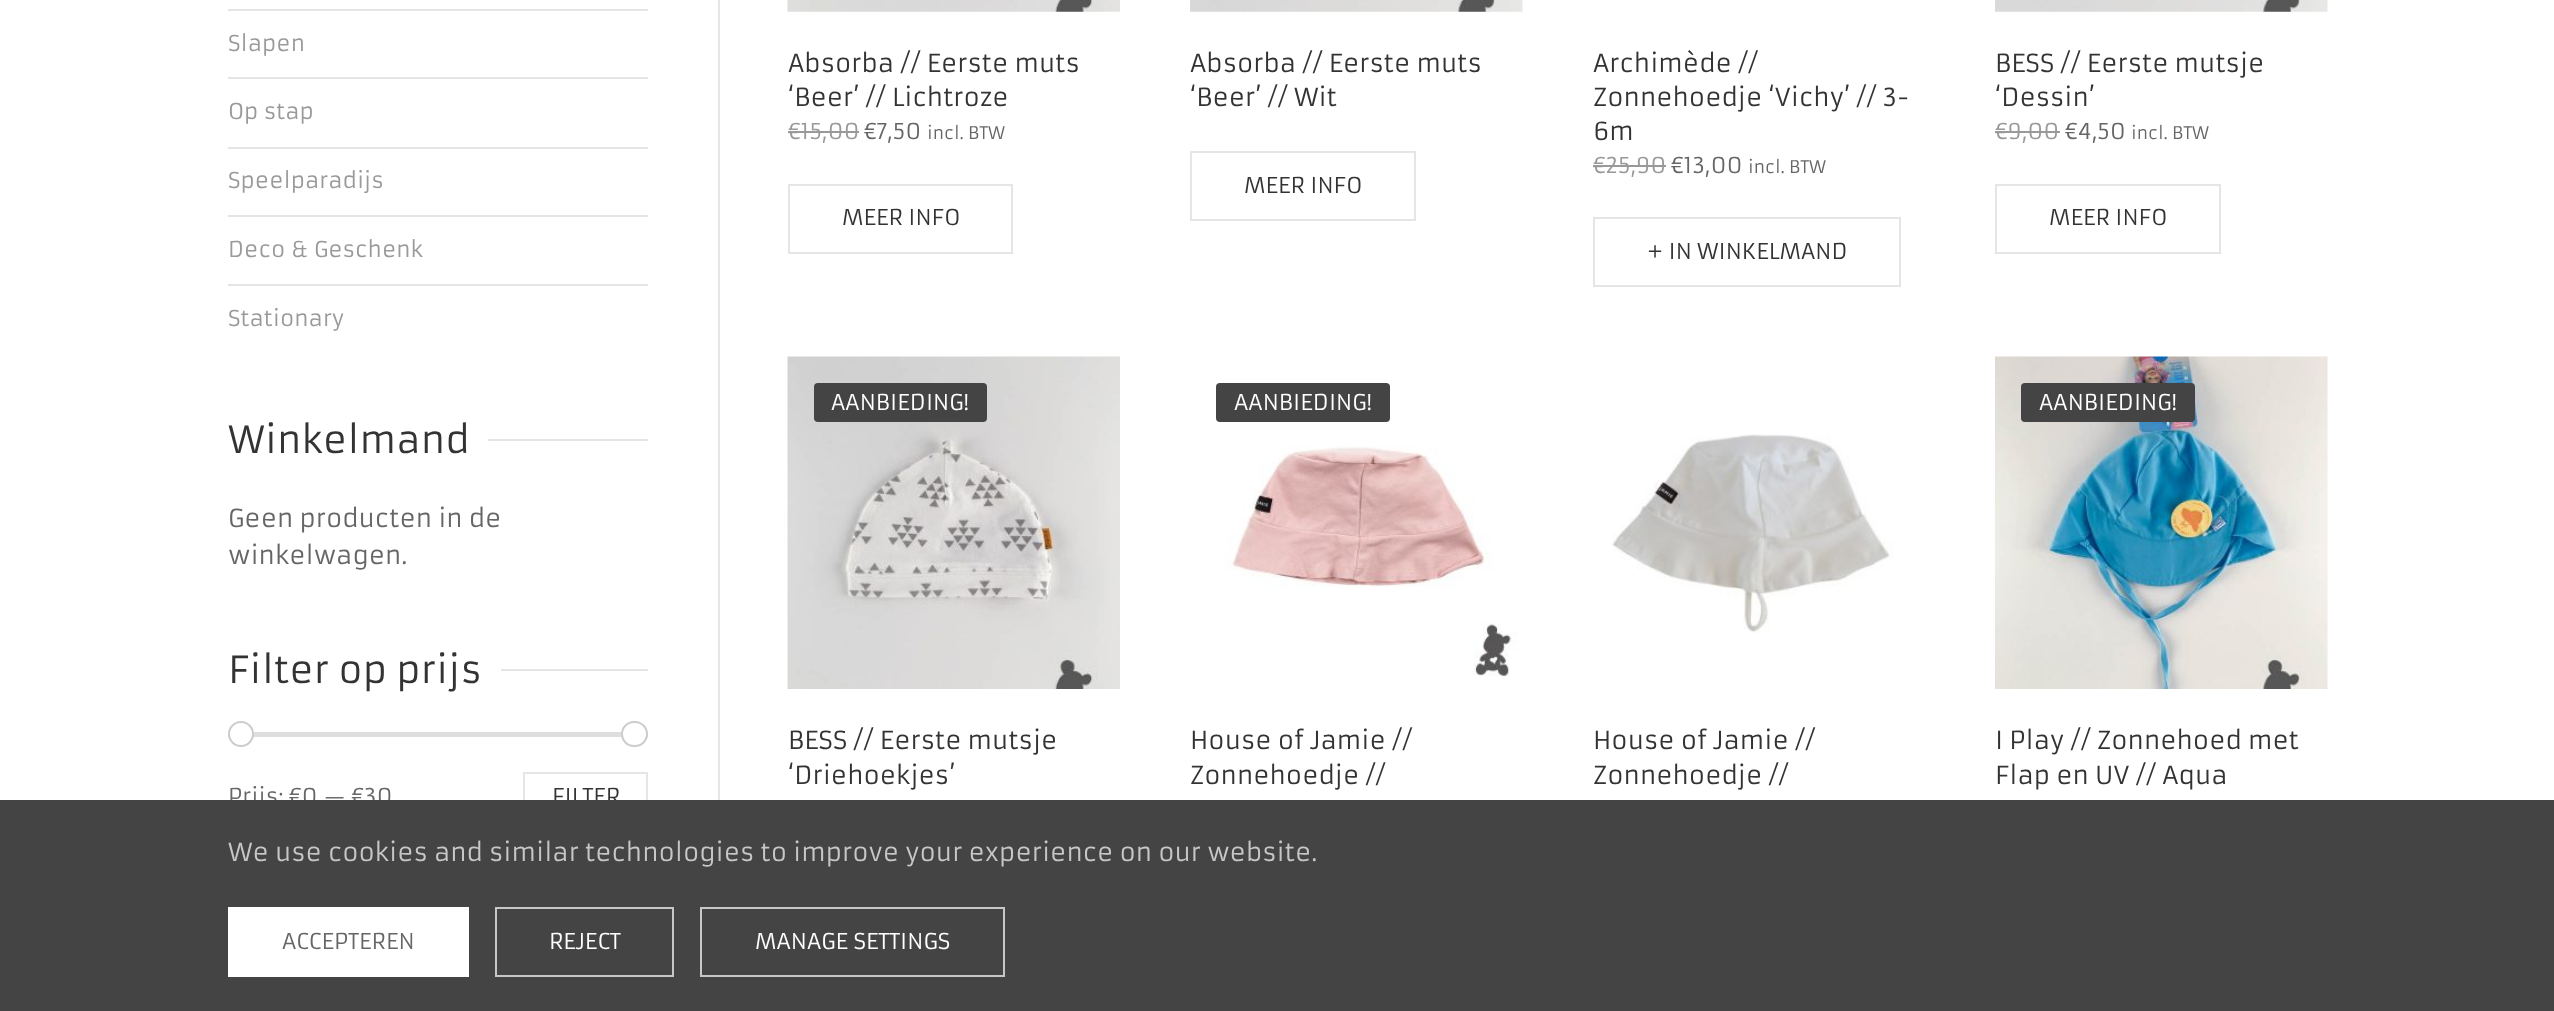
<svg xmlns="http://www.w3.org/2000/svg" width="2554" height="1011">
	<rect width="100%" height="100%" fill="#FFFFFF" />
	<rect x="228" y="9" width="420" height="2" fill="#E5E5E5" />
	<text x="228" y="51" font-family="Armata" font-size="21.5" fill="#999999">Slapen</text>
	<rect x="228" y="77" width="420" height="2" fill="#E5E5E5" />
	<text x="228" y="119" font-family="Armata" font-size="21.5" fill="#999999">Op stap</text>
	<rect x="228" y="147" width="420" height="2" fill="#E5E5E5" />
	<text x="228" y="188" font-family="Armata" font-size="21.5" fill="#999999">Speelparadijs</text>
	<rect x="228" y="215" width="420" height="2" fill="#E5E5E5" />
	<text x="228" y="257" font-family="Armata" font-size="21.5" fill="#999999">Deco &amp; Geschenk</text>
	<rect x="228" y="284" width="420" height="2" fill="#E5E5E5" />
	<text x="228" y="326" font-family="Armata" font-size="21.5" fill="#999999">Stationary</text>
	<text x="228" y="453" font-family="Armata" font-size="36.75" fill="#333333">Winkelmand</text>
	<rect x="488" y="439" width="160" height="2" fill="#E5E5E5" />
	<g font-family="Armata" font-size="24.5" fill="#666666">
		<text x="228" y="527">Geen producten in de</text>
		<text x="228" y="564">winkelwagen.</text>
	</g>
	<text x="228" y="683" font-family="Armata" font-size="36.75" fill="#333333">Filter op prijs</text>
	<rect x="501" y="669" width="147" height="2" fill="#E5E5E5" />
	<rect x="228" y="732" width="420" height="5" fill="#DEDEDE" />
	<circle cx="241" cy="734" r="12" fill="#FFFFFF" stroke="#CCCCCC" stroke-width="2" />
	<rect x="622" y="722" width="25" height="24" rx="12" fill="#FFFFFF" stroke="#CCCCCC" stroke-width="2" />
	<text x="228" y="804" font-family="Armata" font-size="21.5" fill="#666666">Prijs: €0 — €30</text>
	<rect x="524" y="773" width="123" height="50" fill="none" stroke="#E5E5E5" stroke-width="2" />
	<text x="552" y="804" font-family="Armata" font-size="21.5" fill="#333333">FILTER</text>
	<rect x="718" y="0" width="2" height="800" fill="#E5E5E5" />
	<image x="787" y="0" width="333" height="12" href="assets/img1.png" />
	<g font-family="Armata" font-size="24.5" fill="#333333">
		<text x="788" y="72">Absorba // Eerste muts</text>
		<text x="788" y="106">‘Beer’ // Lichtroze</text>
	</g>
	<text x="788" y="139" font-family="Armata" font-size="21.5" fill="#999999">€15,00</text>
	<rect x="788" y="131" width="71" height="2" fill="#999999" />
	<text x="864" y="139" font-family="Armata" font-size="21.5" fill="#666666">€7,50</text>
	<text x="927" y="139" font-family="Armata" font-size="17" fill="#666666">incl. BTW</text>
	<rect x="789" y="185" width="223" height="68" fill="none" stroke="#E5E5E5" stroke-width="2" />
	<text x="842" y="225" font-family="Armata" font-size="21.5" fill="#333333">MEER INFO</text>
	<image x="1190" y="0" width="333" height="12" href="assets/img2.png" />
	<g font-family="Armata" font-size="24.5" fill="#333333">
		<text x="1190" y="72">Absorba // Eerste muts</text>
		<text x="1190" y="106">‘Beer’ // Wit</text>
	</g>
	<rect x="1191" y="152" width="224" height="68" fill="none" stroke="#E5E5E5" stroke-width="2" />
	<text x="1244" y="193" font-family="Armata" font-size="21.5" fill="#333333">MEER INFO</text>
	<g font-family="Armata" font-size="24.5" fill="#333333">
		<text x="1593" y="72">Archimède //</text>
		<text x="1593" y="106">Zonnehoedje ‘Vichy’ // 3-</text>
		<text x="1593" y="140">6m</text>
	</g>
	<text x="1593" y="173" font-family="Armata" font-size="21.5" fill="#999999">€25,90</text>
	<rect x="1593" y="165" width="73" height="2" fill="#999999" />
	<text x="1671" y="173" font-family="Armata" font-size="21.5" fill="#666666">€13,00</text>
	<text x="1748" y="173" font-family="Armata" font-size="17" fill="#666666">incl. BTW</text>
	<rect x="1594" y="218" width="306" height="68" fill="none" stroke="#E5E5E5" stroke-width="2" />
	<text x="1647" y="259" font-family="Armata" font-size="21.5" fill="#333333">+ IN WINKELMAND</text>
	<image x="1995" y="0" width="333" height="12" href="assets/img3.png" />
	<g font-family="Armata" font-size="24.5" fill="#333333">
		<text x="1995" y="72">BESS // Eerste mutsje</text>
		<text x="1995" y="106">‘Dessin’</text>
	</g>
	<text x="1995" y="139" font-family="Armata" font-size="21.5" fill="#999999">€9,00</text>
	<rect x="1995" y="131" width="65" height="2" fill="#999999" />
	<text x="2065" y="139" font-family="Armata" font-size="21.5" fill="#666666">€4,50</text>
	<text x="2131" y="139" font-family="Armata" font-size="17" fill="#666666">incl. BTW</text>
	<rect x="1996" y="185" width="224" height="68" fill="none" stroke="#E5E5E5" stroke-width="2" />
	<text x="2049" y="225" font-family="Armata" font-size="21.5" fill="#333333">MEER INFO</text>
	<image x="787" y="356" width="333" height="333" href="assets/img4.png" />
	<rect x="814" y="383" width="173" height="39" rx="4" fill="#444444" />
	<text x="831" y="410" font-family="Armata" font-size="21.5" fill="#FFFFFF">AANBIEDING!</text>
	<g font-family="Armata" font-size="24.5" fill="#333333">
		<text x="788" y="749">BESS // Eerste mutsje</text>
		<text x="788" y="784">‘Driehoekjes’</text>
	</g>
	<rect x="1216" y="383" width="174" height="39" rx="4" fill="#444444" />
	<text x="1234" y="410" font-family="Armata" font-size="21.5" fill="#FFFFFF">AANBIEDING!</text>
	<image x="1225" y="446" width="293" height="231" href="assets/img5.png" />
	<g font-family="Armata" font-size="24.5" fill="#333333">
		<text x="1190" y="749">House of Jamie //</text>
		<text x="1190" y="784">Zonnehoedje //</text>
	</g>
	<image x="1612" y="434" width="282" height="200" href="assets/img6.png" />
	<g font-family="Armata" font-size="24.5" fill="#333333">
		<text x="1593" y="749">House of Jamie //</text>
		<text x="1593" y="784">Zonnehoedje //</text>
	</g>
	<image x="1995" y="356" width="333" height="333" href="assets/img7.png" />
	<rect x="2021" y="383" width="174" height="39" rx="4" fill="#444444" />
	<text x="2039" y="410" font-family="Armata" font-size="21.5" fill="#FFFFFF">AANBIEDING!</text>
	<g font-family="Armata" font-size="24.5" fill="#333333">
		<text x="1995" y="749">I Play // Zonnehoed met</text>
		<text x="1995" y="784">Flap en UV // Aqua</text>
	</g>
	<rect x="0" y="800" width="2554" height="211" fill="#444444" />
	<text x="228" y="861" font-family="Armata" font-size="24.5" fill="#C7C7C7">We use cookies and similar technologies to improve your experience on our website.</text>
	<rect x="228" y="907" width="241" height="70" fill="#FFFFFF" />
	<text x="282" y="949" font-family="Armata" font-size="21.5" fill="#666666">ACCEPTEREN</text>
	<rect x="496" y="908" width="177" height="68" fill="none" stroke="#C7C7C7" stroke-width="2" />
	<text x="549" y="949" font-family="Armata" font-size="21.5" fill="#FFFFFF">REJECT</text>
	<rect x="701" y="908" width="303" height="68" fill="none" stroke="#C7C7C7" stroke-width="2" />
	<text x="755" y="949" font-family="Armata" font-size="21.5" fill="#FFFFFF">MANAGE SETTINGS</text>
</svg>
